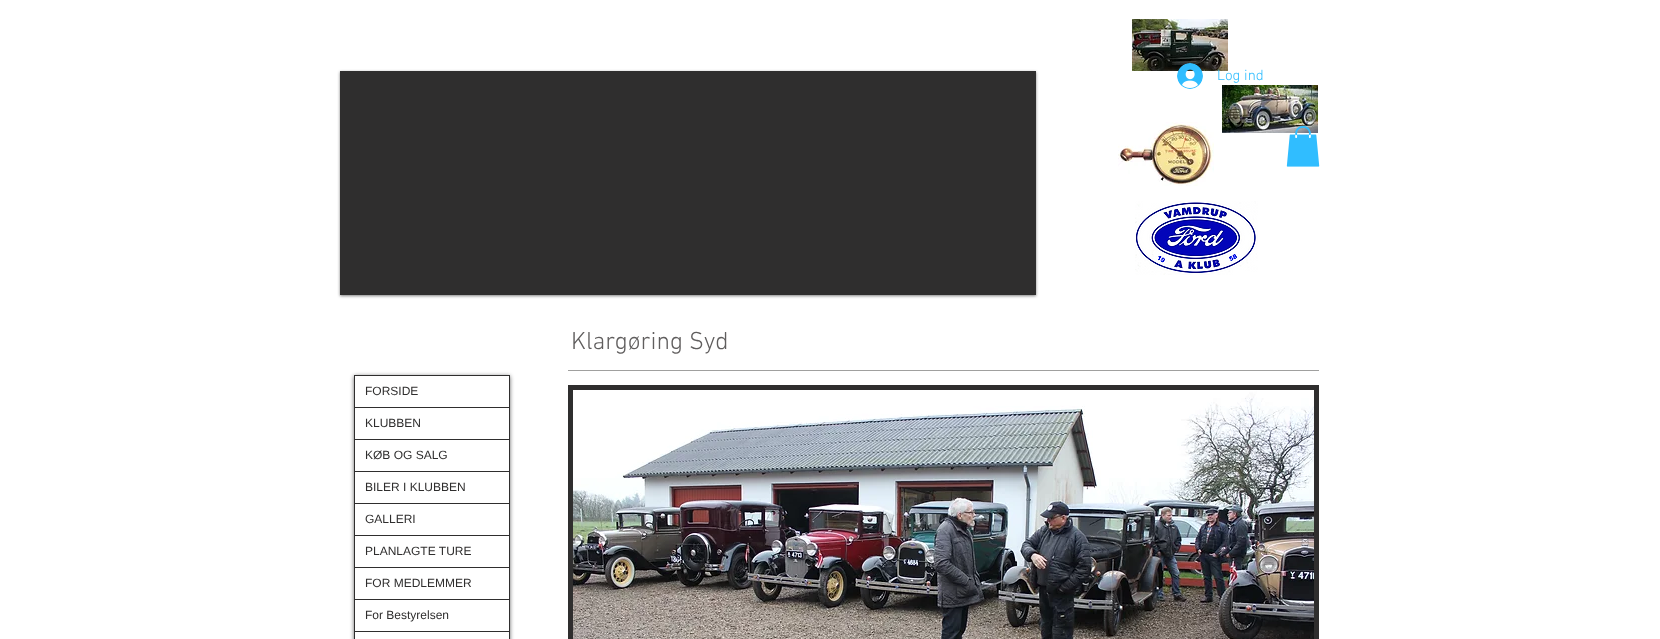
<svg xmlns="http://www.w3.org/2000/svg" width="1660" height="639">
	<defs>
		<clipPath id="clip1"><path d="M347 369H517V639H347ZM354 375H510V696H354Z" clip-rule="evenodd" /></clipPath>
	</defs>
	<rect width="100%" height="100%" fill="#FFFFFF" />
	<image x="1132" y="19" width="96" height="52" href="assets/img1.png" />
	<rect x="340" y="72" width="696" height="224" fill="#000000" fill-opacity="0.5" filter="blur(1.5px)" />
	<rect x="340" y="71" width="696" height="224" fill="#2F2E2E" />
	<image x="1177" y="63" width="26" height="26" href="assets/img2.png" />
	<text x="1217" y="80" font-family="'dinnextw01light'" font-size="15" font-weight="300" fill="#30BDFF">Log ind</text>
	<image x="1222" y="85" width="96" height="48" href="assets/img3.png" />
	<image x="1118" y="122" width="96" height="64" href="assets/img4.png" />
	<image x="1286" y="126" width="34" height="41" href="assets/img5.png" />
	<image x="1135" y="201" width="123" height="74" href="assets/img6.png" />
	<text x="571" y="349" font-family="'dinnextw01light'" font-size="25" font-weight="300" fill="#605E5E">Klargøring Syd</text>
	<rect x="568" y="370" width="751" height="1" fill="#A0A09F" />
	<rect x="568" y="385" width="751" height="254" fill="#2F2E2E" />
	<image x="573" y="390" width="741" height="249" href="assets/img7.png" />
	<g clip-path="url(#clip1)">
		<rect x="354" y="376" width="156" height="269" fill="#000000" fill-opacity="0.6" filter="blur(2px)" />
	</g>
	<rect x="354.5" y="375.5" width="155" height="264" fill="none" stroke="#2F2E2E" />
	<rect x="355" y="407" width="154" height="1" fill="#2F2E2E" />
	<text x="365" y="395" font-family="Liberation Sans" font-size="12" fill="#2F2E2E">FORSIDE</text>
	<rect x="355" y="439" width="154" height="1" fill="#2F2E2E" />
	<text x="365" y="427" font-family="Liberation Sans" font-size="12" fill="#2F2E2E">KLUBBEN</text>
	<rect x="355" y="471" width="154" height="1" fill="#2F2E2E" />
	<text x="365" y="459" font-family="Liberation Sans" font-size="12" fill="#2F2E2E">KØB OG SALG</text>
	<rect x="355" y="503" width="154" height="1" fill="#2F2E2E" />
	<text x="365" y="491" font-family="Liberation Sans" font-size="12" fill="#2F2E2E">BILER I KLUBBEN</text>
	<rect x="355" y="535" width="154" height="1" fill="#2F2E2E" />
	<text x="365" y="523" font-family="Liberation Sans" font-size="12" fill="#2F2E2E">GALLERI</text>
	<rect x="355" y="567" width="154" height="1" fill="#2F2E2E" />
	<text x="365" y="555" font-family="Liberation Sans" font-size="12" fill="#2F2E2E">PLANLAGTE TURE</text>
	<rect x="355" y="599" width="154" height="1" fill="#2F2E2E" />
	<text x="365" y="587" font-family="Liberation Sans" font-size="12" fill="#2F2E2E">FOR MEDLEMMER</text>
	<rect x="355" y="631" width="154" height="1" fill="#2F2E2E" />
	<text x="365" y="619" font-family="Liberation Sans" font-size="12" fill="#2F2E2E">For Bestyrelsen</text>
</svg>
